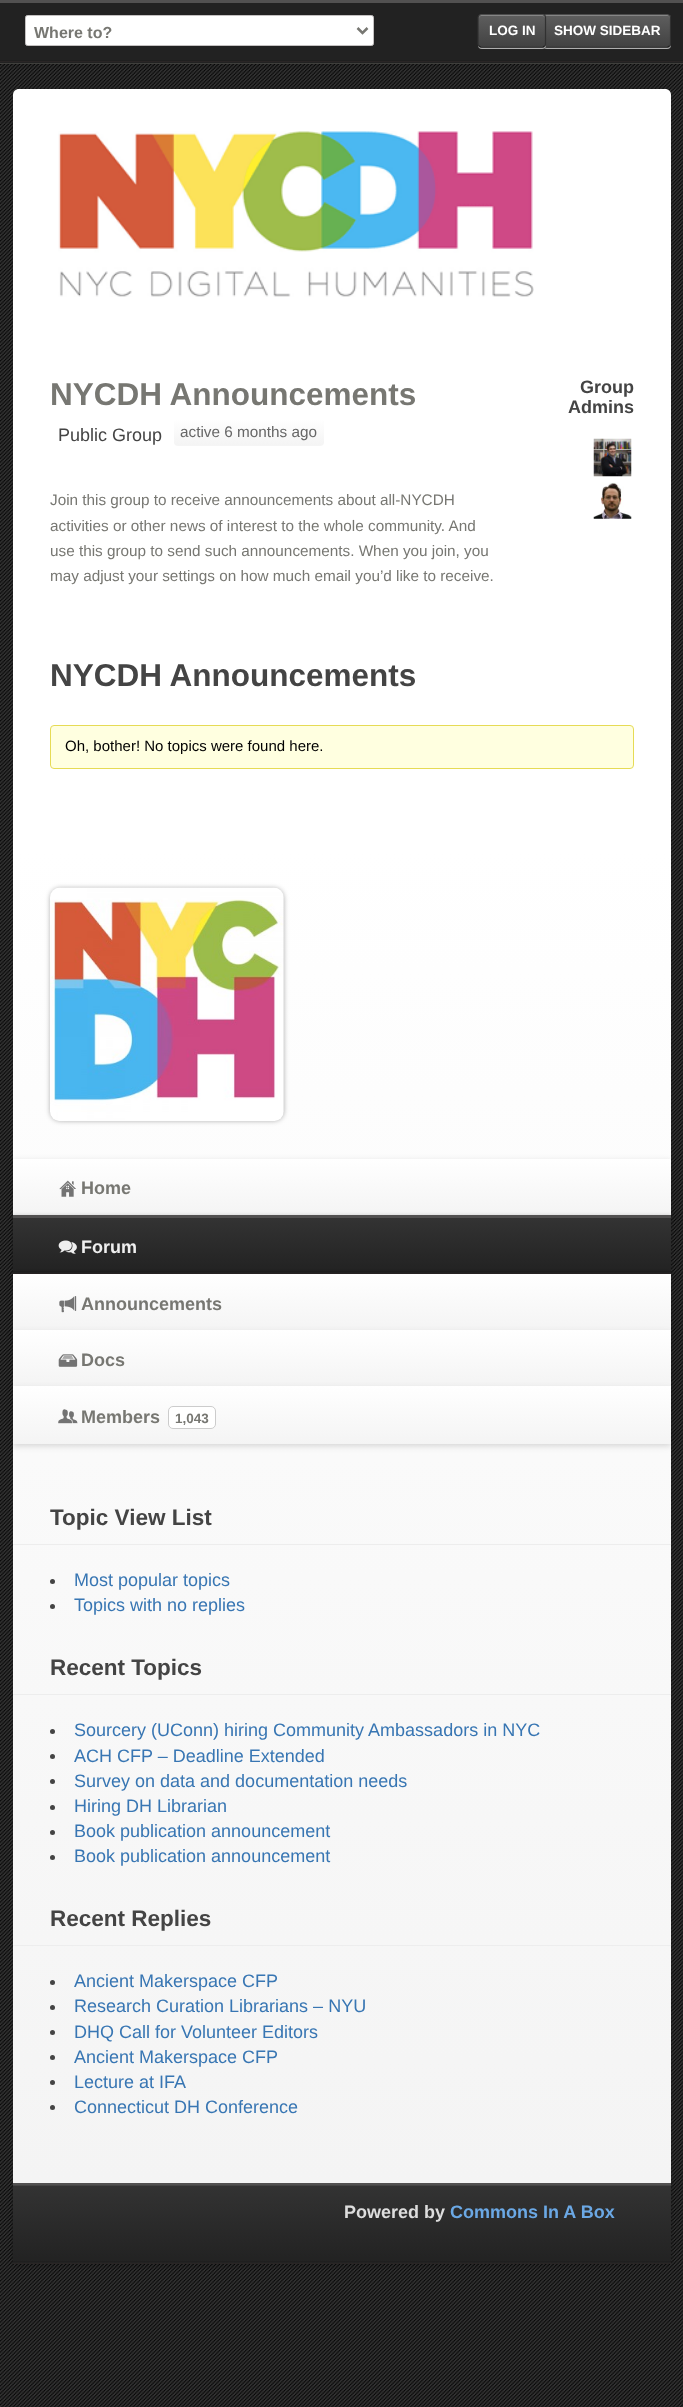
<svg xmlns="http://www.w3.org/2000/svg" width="683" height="2407">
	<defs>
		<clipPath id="clip1"><rect x="543" y="14" width="128" height="34" rx="4" /></clipPath>
		<linearGradient id="g1" gradientUnits="userSpaceOnUse" x1="607" y1="15" x2="607" y2="46"><stop offset="0" stop-color="#5E5E5E" /><stop offset="1" stop-color="#434343" /></linearGradient>
		<linearGradient id="g2" gradientUnits="userSpaceOnUse" x1="607" y1="46" x2="607" y2="78"><stop offset="0" stop-color="#5E5E5E" /><stop offset="1" stop-color="#434343" /></linearGradient>
		<clipPath id="clip2"><rect x="478" y="14" width="68" height="34" rx="4" /></clipPath>
		<linearGradient id="g3" gradientUnits="userSpaceOnUse" x1="512" y1="15" x2="512" y2="46"><stop offset="0" stop-color="#5E5E5E" /><stop offset="1" stop-color="#434343" /></linearGradient>
		<linearGradient id="g4" gradientUnits="userSpaceOnUse" x1="512" y1="46" x2="512" y2="78"><stop offset="0" stop-color="#5E5E5E" /><stop offset="1" stop-color="#434343" /></linearGradient>
		<linearGradient id="g5" gradientUnits="userSpaceOnUse" x1="249" y1="419" x2="249" y2="445"><stop offset="0" stop-color="#FFFFFF" /><stop offset="1" stop-color="#F4F4F4" /></linearGradient>
		<linearGradient id="g6" gradientUnits="userSpaceOnUse" x1="342" y1="850" x2="342" y2="2183"><stop offset="0" stop-color="#FFFFFF" /><stop offset="1" stop-color="#F4F4F4" /></linearGradient>
		<linearGradient id="g7" gradientUnits="userSpaceOnUse" x1="342" y1="1159" x2="342" y2="1215"><stop offset="0" stop-color="#FFFFFF" /><stop offset="1" stop-color="#F4F4F4" /></linearGradient>
		<linearGradient id="g8" gradientUnits="userSpaceOnUse" x1="342" y1="1218" x2="342" y2="1273"><stop offset="0" stop-color="#333333" /><stop offset="1" stop-color="#222222" /></linearGradient>
		<linearGradient id="g9" gradientUnits="userSpaceOnUse" x1="342" y1="1274" x2="342" y2="1330"><stop offset="0" stop-color="#FFFFFF" /><stop offset="1" stop-color="#F4F4F4" /></linearGradient>
		<linearGradient id="g10" gradientUnits="userSpaceOnUse" x1="342" y1="1330" x2="342" y2="1386"><stop offset="0" stop-color="#FFFFFF" /><stop offset="1" stop-color="#F4F4F4" /></linearGradient>
		<linearGradient id="g11" gradientUnits="userSpaceOnUse" x1="342" y1="1386" x2="342" y2="1444"><stop offset="0" stop-color="#FFFFFF" /><stop offset="1" stop-color="#F4F4F4" /></linearGradient>
		<linearGradient id="g12" gradientUnits="userSpaceOnUse" x1="342" y1="2185" x2="342" y2="2263"><stop offset="0" stop-color="#333333" /><stop offset="1" stop-color="#222222" /></linearGradient>
	</defs>
	<rect width="100%" height="100%" fill="#FFFFFF" />
	<image x="0" y="64" width="683" height="2343" href="assets/img1.png" />
	<rect x="0" y="63" width="683" height="1" fill="#4B4A47" />
	<rect x="0" y="1" width="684" height="63" fill="#000000" fill-opacity="0.25" filter="blur(2px)" />
	<rect x="0" y="3" width="683" height="60" fill="#222222" />
	<rect x="0" y="60" width="683" height="1" fill="#1F1F1F" />
	<rect x="0" y="0" width="683" height="3" fill="#525151" />
	<rect x="0" y="61" width="683" height="1" fill="#292525" />
	<rect x="25.5" y="15.5" width="348" height="30" rx="2" fill="#FFFFFF" stroke="#C4C1C1" />
	<path d="M357.5 28L362.5 33L367.5 28" fill="none" stroke="#777772" stroke-width="2.5" />
	<text x="34" y="38" font-family="Liberation Sans" font-size="16" font-weight="700" fill="#777772">Where to?</text>
	<rect x="543" y="15" width="128" height="34" rx="4" fill="#AFAFAF" filter="blur(0.5px)" />
	<g clip-path="url(#clip1)">
		<rect x="544" y="15" width="127" height="31" fill="url(#g1)" />
		<rect x="543" y="46" width="128" height="2" fill="url(#g2)" />
	</g>
	<path d="M546 16H668C669 16 670 17 670 19V18C670 16 669 15 668 15H546C545 15 544 16 544 18V19C544 17 545 16 546 16Z" fill="#868686" />
	<path d="M544 15.5L546 14.5H667.5L669.5 15.5" fill="none" stroke="#4C4C4C" stroke-width="1.2" />
	<path d="M669.5 15.5C670.5 16 670.5 16.5 670.5 17.5V44C670.5 44.5 670.5 45.5 669.5 46" fill="none" stroke="#313131" stroke-width="1.2" />
	<path d="M669.5 46L667.5 47H546L544 46" fill="none" stroke="#1F1F1F" stroke-width="1.2" />
	<path d="M544 46C543.5 45.5 543 44.5 543 44V17.5C543 16.5 543.5 16 544 15.5" fill="none" stroke="#313131" stroke-width="1.2" />
	<rect x="478" y="15" width="68" height="34" rx="4" fill="#AFAFAF" filter="blur(0.5px)" />
	<g clip-path="url(#clip2)">
		<rect x="478" y="15" width="68" height="31" fill="url(#g3)" />
		<rect x="478" y="46" width="68" height="2" fill="url(#g4)" />
	</g>
	<path d="M481 16H542C544 16 545 17 545 19C545 12 538 15 532 15H492C486 15 479 12 479 19C479 17 480 16 481 16Z" fill="#868686" />
	<path d="M479 15.5L481 14.5H543L544.5 15.5" fill="none" stroke="#4C4C4C" stroke-width="1.2" />
	<path d="M544.5 15.5C545.5 16 545.5 16.5 545.5 17.5V44C545.5 44.5 545.5 45.5 544.5 46" fill="none" stroke="#313131" stroke-width="1.2" />
	<path d="M544.5 46L543 47H481L479 46" fill="none" stroke="#1F1F1F" stroke-width="1.2" />
	<path d="M479 46C478.5 45.5 478 44.5 478 44V17.5C478 16.5 478.5 16 479 15.5" fill="none" stroke="#313131" stroke-width="1.2" />
	<g font-family="Liberation Sans" font-size="13.5" font-weight="700" fill="#FFFFFF">
		<text x="489" y="35">LOG IN</text>
		<text x="554" y="35">SHOW SIDEBAR</text>
	</g>
	<path d="M19 89H665C668.5 89 671 91.5 671 95V339H13V95C13 91.5 15.5 89 19 89Z" fill="#FFFFFF" />
	<image x="58" y="131" width="476" height="166" href="assets/img2.png" />
	<rect x="13" y="339" width="658" height="511" fill="#FFFFFF" />
	<text x="50" y="405" font-family="Liberation Sans" font-size="31.5" font-weight="700" fill="#777772">NYCDH Announcements</text>
	<text x="58" y="441" font-family="Liberation Sans" font-size="18" fill="#444444">Public Group</text>
	<rect x="174" y="420" width="150" height="26" rx="4" fill="#000000" fill-opacity="0.04" filter="blur(0.5px)" />
	<rect x="174" y="419" width="150" height="26" rx="4" fill="url(#g5)" />
	<text x="180" y="437" font-family="Liberation Sans" font-size="15.3" fill="#666666">active 6 months ago</text>
	<g font-family="Liberation Sans" font-size="15.3" fill="#777772">
		<text x="50" y="505">Join this group to receive announcements about all-NYCDH</text>
		<text x="50" y="531">activities or other news of interest to the whole community. And</text>
		<text x="50" y="556">use this group to send such announcements. When you join, you</text>
		<text x="50" y="581">may adjust your settings on how much email you’d like to receive.</text>
	</g>
	<g font-family="Liberation Sans" font-size="18" font-weight="700" fill="#444444">
		<text x="580" y="393">Group</text>
		<text x="568" y="413">Admins</text>
	</g>
	<image x="593" y="438" width="39" height="39" href="assets/img3.png" />
	<image x="593" y="482" width="39" height="37" href="assets/img4.png" />
	<text x="50" y="686" font-family="Liberation Sans" font-size="31.5" font-weight="700" fill="#444444">NYCDH Announcements</text>
	<rect x="50.5" y="725.5" width="583" height="43" rx="3.5" fill="#FFFFE0" stroke="#E6DB55" />
	<text x="65" y="751" font-family="Liberation Sans" font-size="15" fill="#000000">Oh, bother! No topics were found here.</text>
	<rect x="13" y="2184" width="658" height="81" fill="#000000" fill-opacity="0.25" filter="blur(2px)" />
	<rect x="13" y="850" width="658" height="1333" fill="url(#g6)" />
	<rect x="50" y="888" width="234" height="233" rx="10" fill="#000000" fill-opacity="0.3" filter="blur(2.5px)" />
	<image x="50" y="887" width="234" height="234" href="assets/img5.png" />
	<rect x="13" y="1161" width="658" height="57" fill="#000000" fill-opacity="0.15" filter="blur(3px)" />
	<rect x="13" y="1159" width="658" height="56" fill="url(#g7)" />
	<image x="59" y="1180" width="17" height="17" href="assets/img6.png" />
	<text x="81" y="1194" font-family="Liberation Sans" font-size="18" font-weight="700" fill="#777772">Home</text>
	<rect x="13" y="1216" width="658" height="59" fill="#000000" fill-opacity="0.25" filter="blur(2px)" />
	<rect x="13" y="1218" width="658" height="55" fill="url(#g8)" />
	<rect x="13" y="1271" width="658" height="1" fill="#1F1F1F" />
	<rect x="13" y="1215" width="658" height="3" fill="#525151" />
	<rect x="13" y="1273" width="658" height="1" fill="#292525" />
	<image x="58" y="1240" width="19" height="14" href="assets/img7.png" />
	<text x="81" y="1253" font-family="Liberation Sans" font-size="18" font-weight="700" fill="#EFEFEF">Forum</text>
	<rect x="13" y="1276" width="658" height="57" fill="#000000" fill-opacity="0.15" filter="blur(3px)" />
	<rect x="13" y="1274" width="658" height="56" fill="url(#g9)" />
	<image x="59" y="1296" width="18" height="17" href="assets/img8.png" />
	<text x="81" y="1310" font-family="Liberation Sans" font-size="18" font-weight="700" fill="#777772">Announcements</text>
	<rect x="13" y="1333" width="658" height="56" fill="#000000" fill-opacity="0.15" filter="blur(3px)" />
	<rect x="13" y="1330" width="658" height="56" fill="url(#g10)" />
	<image x="58" y="1354" width="20" height="13" href="assets/img9.png" />
	<text x="81" y="1366" font-family="Liberation Sans" font-size="18" font-weight="700" fill="#777772">Docs</text>
	<rect x="13" y="1389" width="658" height="57" fill="#000000" fill-opacity="0.15" filter="blur(3px)" />
	<rect x="13" y="1386" width="658" height="58" fill="url(#g11)" />
	<image x="58" y="1409" width="20" height="15" href="assets/img10.png" />
	<text x="81" y="1423" font-family="Liberation Sans" font-size="18" font-weight="700" fill="#777772">Members</text>
	<rect x="168.5" y="1406.5" width="47" height="22" rx="4.5" fill="#FFFFFF" stroke="#CCCCCC" />
	<text x="175" y="1423" font-family="Liberation Sans" font-size="13.5" font-weight="700" fill="#777772">1,043</text>
	<rect x="13" y="1544" width="658" height="1" fill="#EDEDED" />
	<text x="50" y="1525" font-family="Liberation Sans" font-size="22.5" font-weight="700" fill="#444444">Topic View List</text>
	<circle cx="52.5" cy="1581.5" r="2.5" fill="#444444" />
	<text x="74" y="1586" font-family="Liberation Sans" font-size="18" fill="#3876B3">Most popular topics</text>
	<circle cx="52.5" cy="1606.5" r="2.5" fill="#444444" />
	<text x="74" y="1611" font-family="Liberation Sans" font-size="18" fill="#3876B3">Topics with no replies</text>
	<rect x="13" y="1694" width="658" height="1" fill="#EDEDED" />
	<text x="50" y="1675" font-family="Liberation Sans" font-size="22.5" font-weight="700" fill="#444444">Recent Topics</text>
	<circle cx="52.5" cy="1731.5" r="2.5" fill="#444444" />
	<text x="74" y="1736" font-family="Liberation Sans" font-size="18" fill="#3876B3">Sourcery (UConn) hiring Community Ambassadors in NYC</text>
	<circle cx="52.5" cy="1756.5" r="2.5" fill="#444444" />
	<text x="74" y="1762" font-family="Liberation Sans" font-size="18" fill="#3876B3">ACH CFP – Deadline Extended</text>
	<circle cx="52.5" cy="1781.5" r="2.5" fill="#444444" />
	<text x="74" y="1787" font-family="Liberation Sans" font-size="18" fill="#3876B3">Survey on data and documentation needs</text>
	<circle cx="52.5" cy="1807.5" r="2.5" fill="#444444" />
	<text x="74" y="1812" font-family="Liberation Sans" font-size="18" fill="#3876B3">Hiring DH Librarian</text>
	<circle cx="52.5" cy="1832.5" r="2.5" fill="#444444" />
	<text x="74" y="1837" font-family="Liberation Sans" font-size="18" fill="#3876B3">Book publication announcement</text>
	<circle cx="52.5" cy="1857.5" r="2.5" fill="#444444" />
	<text x="74" y="1862" font-family="Liberation Sans" font-size="18" fill="#3876B3">Book publication announcement</text>
	<rect x="13" y="1945" width="658" height="1" fill="#EDEDED" />
	<text x="50" y="1926" font-family="Liberation Sans" font-size="22.5" font-weight="700" fill="#444444">Recent Replies</text>
	<circle cx="52.5" cy="1982.5" r="2.5" fill="#444444" />
	<text x="74" y="1987" font-family="Liberation Sans" font-size="18" fill="#3876B3">Ancient Makerspace CFP</text>
	<circle cx="52.5" cy="2007.5" r="2.5" fill="#444444" />
	<text x="74" y="2012" font-family="Liberation Sans" font-size="18" fill="#3876B3">Research Curation Librarians – NYU</text>
	<circle cx="52.5" cy="2032.5" r="2.5" fill="#444444" />
	<text x="74" y="2038" font-family="Liberation Sans" font-size="18" fill="#3876B3">DHQ Call for Volunteer Editors</text>
	<circle cx="52.5" cy="2057.5" r="2.5" fill="#444444" />
	<text x="74" y="2063" font-family="Liberation Sans" font-size="18" fill="#3876B3">Ancient Makerspace CFP</text>
	<circle cx="52.5" cy="2082.5" r="2.5" fill="#444444" />
	<text x="74" y="2088" font-family="Liberation Sans" font-size="18" fill="#3876B3">Lecture at IFA</text>
	<circle cx="52.5" cy="2107.5" r="2.5" fill="#444444" />
	<text x="74" y="2113" font-family="Liberation Sans" font-size="18" fill="#3876B3">Connecticut DH Conference</text>
	<rect x="13" y="2186" width="658" height="77" fill="url(#g12)" />
	<rect x="13" y="2261" width="658" height="1" fill="#1F1F1F" />
	<rect x="13" y="2183" width="658" height="2" fill="#525151" />
	<rect x="13" y="2263" width="658" height="1" fill="#292525" />
	<rect x="13" y="2185" width="658" height="1" fill="#454545" />
	<text x="344" y="2218" font-family="Liberation Sans" font-size="18" font-weight="700" fill="#DDDDDD">Powered by</text>
	<text x="450" y="2218" font-family="Liberation Sans" font-size="18" font-weight="700" fill="#6BA8E4">Commons In A Box</text>
</svg>
